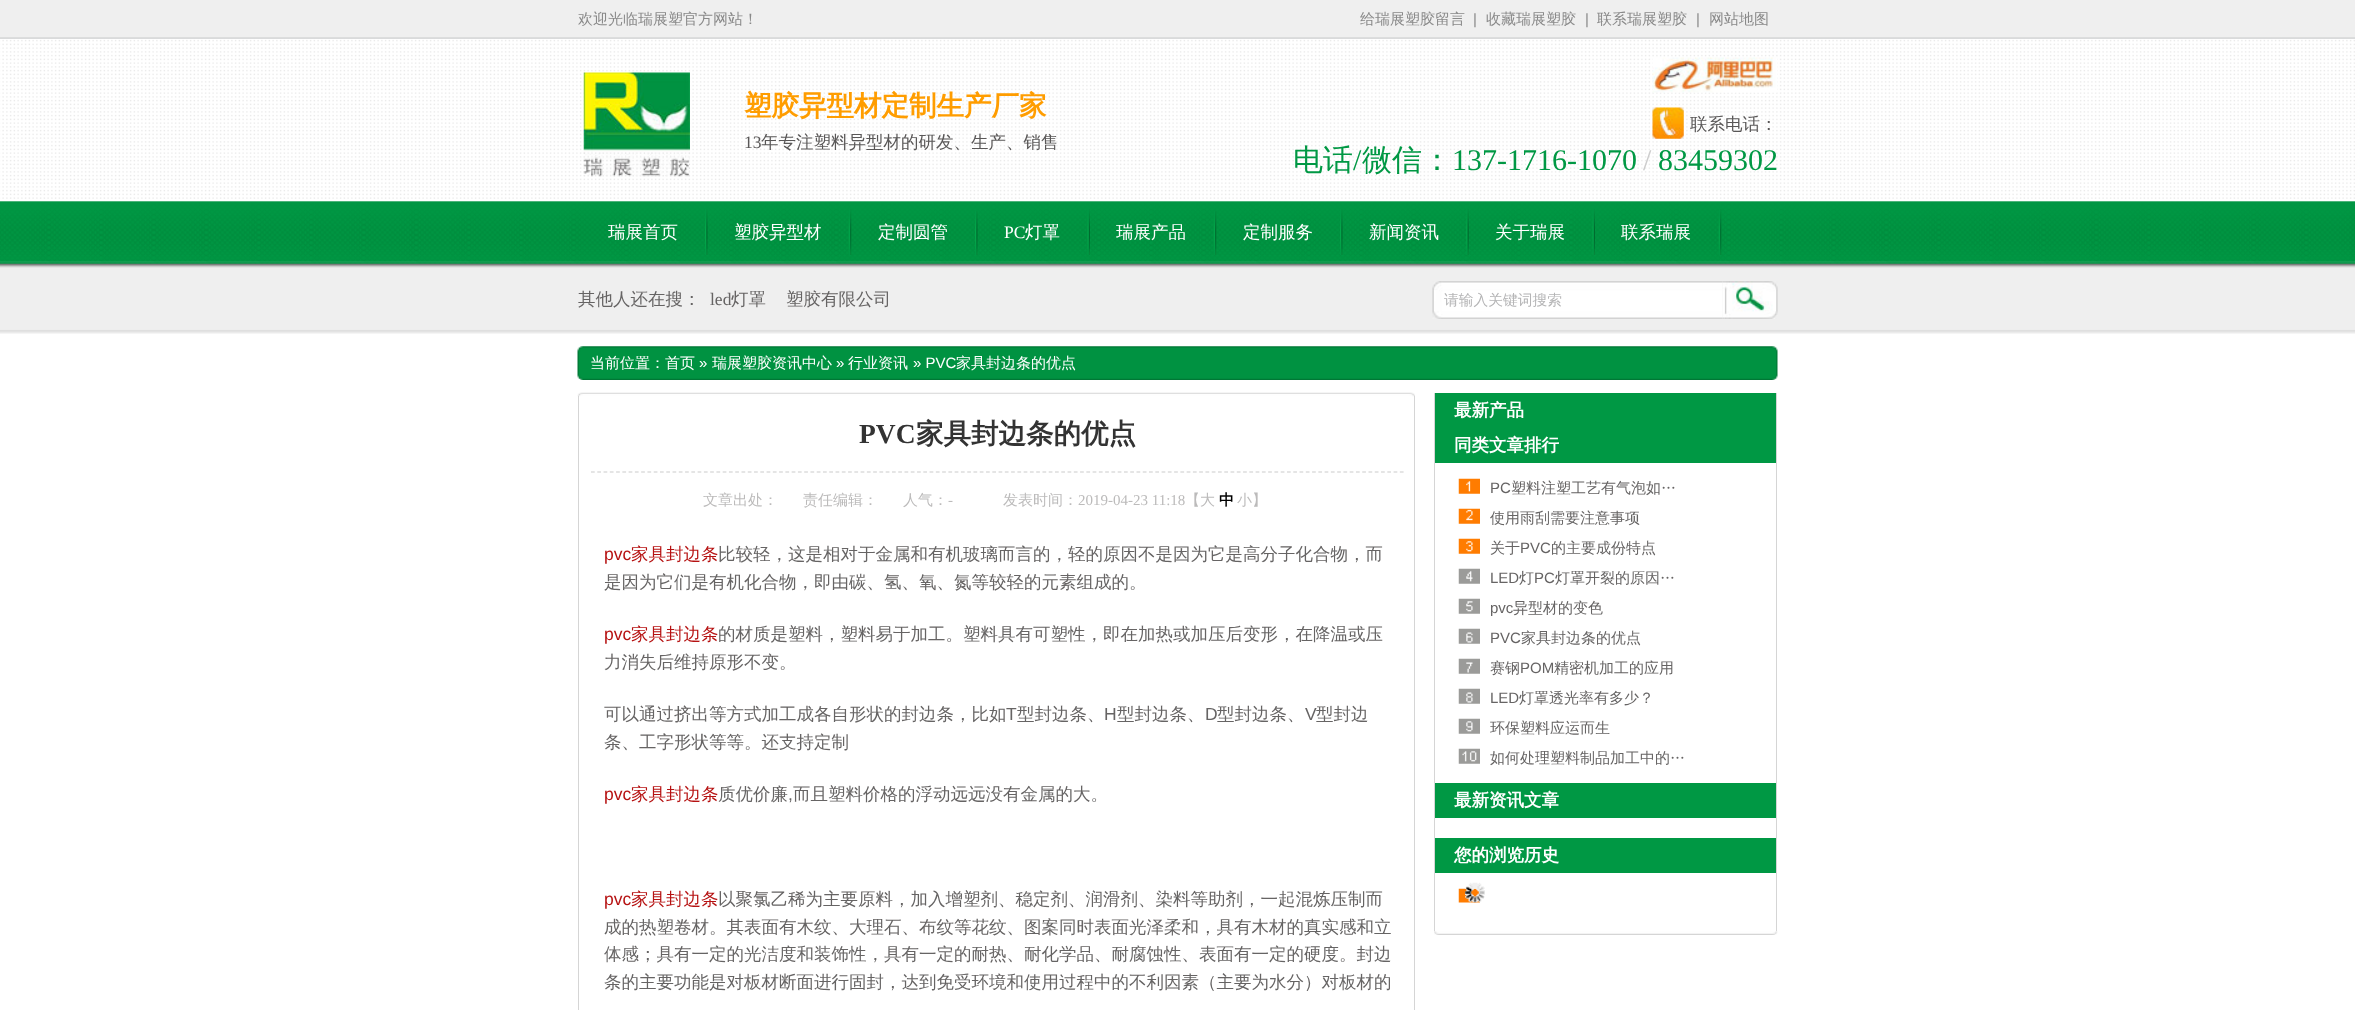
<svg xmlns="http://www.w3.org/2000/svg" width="2355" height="1010">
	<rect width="100%" height="100%" fill="#FFFFFF" />
	<image x="0" y="267" width="2355" height="67" href="assets/img14.png" />
	<image x="0" y="0" width="2355" height="268" href="assets/img1.png" />
	<g font-family="WenQuanYi Zen Hei" font-size="15" font-weight="500" fill="#898989">
		<text x="578" y="24">欢迎光临瑞展塑官方网站！</text>
		<text x="1360" y="24">给瑞展塑胶留言</text>
	</g>
	<text x="1473" y="24" font-family="Liberation Sans" font-size="15" fill="#898989">|</text>
	<text x="1486" y="24" font-family="WenQuanYi Zen Hei" font-size="15" font-weight="500" fill="#898989">收藏瑞展塑胶</text>
	<text x="1585" y="24" font-family="Liberation Sans" font-size="15" fill="#898989">|</text>
	<text x="1597" y="24" font-family="WenQuanYi Zen Hei" font-size="15" font-weight="500" fill="#898989">联系瑞展塑胶</text>
	<text x="1696" y="24" font-family="Liberation Sans" font-size="15" fill="#898989">|</text>
	<text x="1709" y="24" font-family="WenQuanYi Zen Hei" font-size="15" font-weight="500" fill="#898989">网站地图</text>
	<image x="1652" y="57" width="126" height="36" href="assets/img2.png" />
	<image x="583" y="72" width="107" height="105" href="assets/img3.png" />
	<text x="744" y="115" font-family="WenQuanYi Zen Hei" font-size="27.5" font-weight="700" fill="#FF9D00">塑胶异型材定制生产厂家</text>
	<text x="744" y="148" font-family="Liberation Serif" font-size="17.5" fill="#595757">13</text>
	<text x="761" y="148" font-family="WenQuanYi Zen Hei" font-size="17.5" font-weight="500" fill="#595757">年专注塑料异型材的研发、生产、销售</text>
	<image x="1652" y="107" width="32" height="32" href="assets/img4.png" />
	<text x="1690" y="130" font-family="WenQuanYi Zen Hei" font-size="17.5" font-weight="500" fill="#595757">联系电话：</text>
	<text x="1293" y="170" font-family="WenQuanYi Zen Hei" font-size="30" font-weight="500" fill="#009844">电话</text>
	<text x="1353" y="170" font-family="Liberation Serif" font-size="30" fill="#009844">/</text>
	<text x="1362" y="170" font-family="WenQuanYi Zen Hei" font-size="30" font-weight="500" fill="#009844">微信：</text>
	<text x="1452" y="170" font-family="Liberation Serif" font-size="30" fill="#009844">137-1716-1070</text>
	<text x="1643" y="170" font-family="Liberation Serif" font-size="30" fill="#CCCCCC">/</text>
	<text x="1658" y="170" font-family="Liberation Serif" font-size="30" fill="#009844">83459302</text>
	<image x="705" y="209" width="3" height="46" href="assets/img5.png" />
	<text x="608" y="238" font-family="WenQuanYi Zen Hei" font-size="17.5" font-weight="500" fill="#FFFFFF">瑞展首页</text>
	<image x="848" y="209" width="4" height="46" href="assets/img6.png" />
	<text x="734" y="238" font-family="WenQuanYi Zen Hei" font-size="17.5" font-weight="500" fill="#FFFFFF">塑胶异型材</text>
	<image x="975" y="211" width="3" height="44" href="assets/img7.png" />
	<text x="878" y="238" font-family="WenQuanYi Zen Hei" font-size="17.5" font-weight="500" fill="#FFFFFF">定制圆管</text>
	<image x="1087" y="209" width="3" height="46" href="assets/img8.png" />
	<text x="1004" y="238" font-family="Liberation Serif" font-size="17.5" fill="#FFFFFF">PC</text>
	<text x="1025" y="238" font-family="WenQuanYi Zen Hei" font-size="17.5" font-weight="500" fill="#FFFFFF">灯罩</text>
	<image x="1213" y="211" width="4" height="44" href="assets/img9.png" />
	<text x="1116" y="238" font-family="WenQuanYi Zen Hei" font-size="17.5" font-weight="500" fill="#FFFFFF">瑞展产品</text>
	<image x="1340" y="209" width="3" height="46" href="assets/img10.png" />
	<text x="1243" y="238" font-family="WenQuanYi Zen Hei" font-size="17.5" font-weight="500" fill="#FFFFFF">定制服务</text>
	<image x="1466" y="209" width="3" height="46" href="assets/img11.png" />
	<text x="1369" y="238" font-family="WenQuanYi Zen Hei" font-size="17.5" font-weight="500" fill="#FFFFFF">新闻资讯</text>
	<image x="1592" y="209" width="3" height="46" href="assets/img12.png" />
	<text x="1495" y="238" font-family="WenQuanYi Zen Hei" font-size="17.5" font-weight="500" fill="#FFFFFF">关于瑞展</text>
	<image x="1718" y="209" width="4" height="46" href="assets/img13.png" />
	<text x="1621" y="238" font-family="WenQuanYi Zen Hei" font-size="17.5" font-weight="500" fill="#FFFFFF">联系瑞展</text>
	<text x="578" y="305" font-family="WenQuanYi Zen Hei" font-size="17.5" font-weight="500" fill="#666464">其他人还在搜：</text>
	<text x="710" y="305" font-family="Liberation Serif" font-size="17.5" fill="#666464">led</text>
	<g font-family="WenQuanYi Zen Hei" font-size="17.5" font-weight="500" fill="#666464">
		<text x="731" y="305">灯罩</text>
		<text x="786" y="305">塑胶有限公司</text>
	</g>
	<image x="1432" y="281" width="291" height="38" href="assets/img15.png" />
	<text x="1444" y="305" font-family="WenQuanYi Zen Hei" font-size="14.75" font-weight="500" fill="#B5B5B6">请输入关键词搜索</text>
	<image x="1722" y="281" width="56" height="38" href="assets/img16.png" />
	<image x="577" y="346" width="1201" height="34" href="assets/img17.png" />
	<text x="590" y="368" font-family="WenQuanYi Zen Hei" font-size="15" font-weight="500" fill="#FFFFFF">当前位置：首页</text>
	<text x="699" y="368" font-family="Liberation Sans" font-size="15" fill="#FFFFFF">»</text>
	<text x="712" y="368" font-family="WenQuanYi Zen Hei" font-size="15" font-weight="500" fill="#FFFFFF">瑞展塑胶资讯中心</text>
	<text x="836" y="368" font-family="Liberation Sans" font-size="15" fill="#FFFFFF">»</text>
	<text x="848" y="368" font-family="WenQuanYi Zen Hei" font-size="15" font-weight="500" fill="#FFFFFF">行业资讯</text>
	<text x="913" y="368" font-family="Liberation Sans" font-size="15" fill="#FFFFFF">» PVC</text>
	<text x="956" y="368" font-family="WenQuanYi Zen Hei" font-size="15" font-weight="500" fill="#FFFFFF">家具封边条的优点</text>
	<image x="577" y="392" width="838" height="5" href="assets/img18.png" />
	<rect x="1414" y="396" width="1" height="614" fill="#D5D5D5" />
	<rect x="578" y="396" width="1" height="614" fill="#D5D5D5" />
	<path d="M591 472H1404" fill="none" stroke="#CCCCCC" stroke-width="1.2" stroke-dasharray="3.75 2.52" />
	<text x="859" y="443" font-family="Liberation Serif" font-size="27.5" font-weight="700" fill="#333333">PVC</text>
	<text x="916" y="443" font-family="WenQuanYi Zen Hei" font-size="27.5" font-weight="700" fill="#333333">家具封边条的优点</text>
	<g font-family="WenQuanYi Zen Hei" font-size="15" font-weight="500" fill="#BCBBBB">
		<text x="703" y="505">文章出处：</text>
		<text x="803" y="505">责任编辑：</text>
		<text x="903" y="505">人气：</text>
	</g>
	<text x="948" y="505" font-family="Liberation Serif" font-size="15" fill="#BCBBBB">-</text>
	<text x="1003" y="505" font-family="WenQuanYi Zen Hei" font-size="15" font-weight="500" fill="#BCBBBB">发表时间：</text>
	<text x="1078" y="505" font-family="Liberation Serif" font-size="15" fill="#BCBBBB">2019-04-23 11:18</text>
	<text x="1185" y="505" font-family="WenQuanYi Zen Hei" font-size="15" font-weight="500" fill="#BCBBBB">【大</text>
	<text x="1219" y="505" font-family="WenQuanYi Zen Hei" font-size="15" font-weight="700" fill="#000000">中</text>
	<text x="1237" y="505" font-family="WenQuanYi Zen Hei" font-size="15" font-weight="500" fill="#BCBBBB">小】</text>
	<text x="604" y="560" font-family="Liberation Sans" font-size="17.5" fill="#B61212">pvc</text>
	<text x="631" y="560" font-family="WenQuanYi Zen Hei" font-size="17.5" font-weight="500" fill="#B61212">家具封边条</text>
	<g font-family="WenQuanYi Zen Hei" font-size="17.5" font-weight="500" fill="#666464">
		<text x="718" y="560">比较轻，这是相对于金属和有机玻璃而言的，轻的原因不是因为它是高分子化合物，而</text>
		<text x="604" y="588">是因为它们是有机化合物，即由碳、氢、氧、氮等较轻的元素组成的。</text>
	</g>
	<text x="604" y="640" font-family="Liberation Sans" font-size="17.5" fill="#B61212">pvc</text>
	<text x="631" y="640" font-family="WenQuanYi Zen Hei" font-size="17.5" font-weight="500" fill="#B61212">家具封边条</text>
	<g font-family="WenQuanYi Zen Hei" font-size="17.5" font-weight="500" fill="#666464">
		<text x="718" y="640">的材质是塑料，塑料易于加工。塑料具有可塑性，即在加热或加压后变形，在降温或压</text>
		<text x="604" y="668">力消失后维持原形不变。</text>
		<text x="604" y="720">可以通过挤出等方式加工成各自形状的封边条，比如</text>
	</g>
	<text x="1006" y="720" font-family="Liberation Sans" font-size="17.5" fill="#666464">T</text>
	<text x="1017" y="720" font-family="WenQuanYi Zen Hei" font-size="17.5" font-weight="500" fill="#666464">型封边条、</text>
	<text x="1104" y="720" font-family="Liberation Sans" font-size="17.5" fill="#666464">H</text>
	<text x="1117" y="720" font-family="WenQuanYi Zen Hei" font-size="17.5" font-weight="500" fill="#666464">型封边条、</text>
	<text x="1205" y="720" font-family="Liberation Sans" font-size="17.5" fill="#666464">D</text>
	<text x="1217" y="720" font-family="WenQuanYi Zen Hei" font-size="17.5" font-weight="500" fill="#666464">型封边条、</text>
	<text x="1305" y="720" font-family="Liberation Sans" font-size="17.5" fill="#666464">V</text>
	<g font-family="WenQuanYi Zen Hei" font-size="17.5" font-weight="500" fill="#666464">
		<text x="1316" y="720">型封边</text>
		<text x="604" y="748">条、工字形状等等。还支持定制</text>
	</g>
	<text x="604" y="800" font-family="Liberation Sans" font-size="17.5" fill="#B61212">pvc</text>
	<text x="631" y="800" font-family="WenQuanYi Zen Hei" font-size="17.5" font-weight="500" fill="#B61212">家具封边条</text>
	<text x="718" y="800" font-family="WenQuanYi Zen Hei" font-size="17.5" font-weight="500" fill="#666464">质优价廉</text>
	<text x="788" y="800" font-family="Liberation Sans" font-size="17.5" fill="#666464">,</text>
	<text x="793" y="800" font-family="WenQuanYi Zen Hei" font-size="17.5" font-weight="500" fill="#666464">而且塑料价格的浮动远远没有金属的大。</text>
	<text x="604" y="905" font-family="Liberation Sans" font-size="17.5" fill="#B61212">pvc</text>
	<text x="631" y="905" font-family="WenQuanYi Zen Hei" font-size="17.5" font-weight="500" fill="#B61212">家具封边条</text>
	<g font-family="WenQuanYi Zen Hei" font-size="17.5" font-weight="500" fill="#666464">
		<text x="718" y="905">以聚氯乙稀为主要原料，加入增塑剂、稳定剂、润滑剂、染料等助剂，一起混炼压制而</text>
		<text x="604" y="933">成的热塑卷材。其表面有木纹、大理石、布纹等花纹、图案同时表面光泽柔和，具有木材的真实感和立</text>
		<text x="604" y="960">体感；具有一定的光洁度和装饰性，具有一定的耐热、耐化学品、耐腐蚀性、表面有一定的硬度。封边</text>
		<text x="604" y="988">条的主要功能是对板材断面进行固封，达到免受环境和使用过程中的不利因素（主要为水分）对板材的</text>
	</g>
	<rect x="1776" y="393" width="1" height="538" fill="#D5D5D5" />
	<rect x="1434" y="393" width="1" height="538" fill="#D5D5D5" />
	<rect x="1435" y="393" width="341" height="70" fill="#009844" />
	<g font-family="WenQuanYi Zen Hei" font-size="17.5" font-weight="700" fill="#FFFFFF">
		<text x="1454" y="416">最新产品</text>
		<text x="1454" y="451">同类文章排行</text>
	</g>
	<image x="1458" y="478" width="22" height="286" href="assets/img19.png" />
	<text x="1490" y="493" font-family="Liberation Sans" font-size="15" fill="#666464">PC</text>
	<g font-family="WenQuanYi Zen Hei" font-size="15" font-weight="500" fill="#666464">
		<text x="1511" y="493">塑料注塑工艺有气泡如…</text>
		<text x="1490" y="523">使用雨刮需要注意事项</text>
		<text x="1490" y="553">关于</text>
	</g>
	<text x="1520" y="553" font-family="Liberation Sans" font-size="15" fill="#666464">PVC</text>
	<text x="1551" y="553" font-family="WenQuanYi Zen Hei" font-size="15" font-weight="500" fill="#666464">的主要成份特点</text>
	<text x="1490" y="583" font-family="Liberation Sans" font-size="15" fill="#666464">LED</text>
	<text x="1519" y="583" font-family="WenQuanYi Zen Hei" font-size="15" font-weight="500" fill="#666464">灯</text>
	<text x="1534" y="583" font-family="Liberation Sans" font-size="15" fill="#666464">PC</text>
	<text x="1555" y="583" font-family="WenQuanYi Zen Hei" font-size="15" font-weight="500" fill="#666464">灯罩开裂的原因…</text>
	<text x="1490" y="613" font-family="Liberation Sans" font-size="15" fill="#666464">pvc</text>
	<text x="1513" y="613" font-family="WenQuanYi Zen Hei" font-size="15" font-weight="500" fill="#666464">异型材的变色</text>
	<text x="1490" y="643" font-family="Liberation Sans" font-size="15" fill="#666464">PVC</text>
	<g font-family="WenQuanYi Zen Hei" font-size="15" font-weight="500" fill="#666464">
		<text x="1521" y="643">家具封边条的优点</text>
		<text x="1490" y="673">赛钢</text>
	</g>
	<text x="1520" y="673" font-family="Liberation Sans" font-size="15" fill="#666464">POM</text>
	<text x="1554" y="673" font-family="WenQuanYi Zen Hei" font-size="15" font-weight="500" fill="#666464">精密机加工的应用</text>
	<text x="1490" y="703" font-family="Liberation Sans" font-size="15" fill="#666464">LED</text>
	<g font-family="WenQuanYi Zen Hei" font-size="15" font-weight="500" fill="#666464">
		<text x="1519" y="703">灯罩透光率有多少？</text>
		<text x="1490" y="733">环保塑料应运而生</text>
		<text x="1490" y="763">如何处理塑料制品加工中的…</text>
	</g>
	<rect x="1435" y="783" width="341" height="35" fill="#009844" />
	<text x="1454" y="806" font-family="WenQuanYi Zen Hei" font-size="17.5" font-weight="700" fill="#FFFFFF">最新资讯文章</text>
	<rect x="1435" y="838" width="341" height="35" fill="#009844" />
	<text x="1454" y="861" font-family="WenQuanYi Zen Hei" font-size="17.5" font-weight="700" fill="#FFFFFF">您的浏览历史</text>
	<image x="1458" y="888" width="22" height="15" href="assets/img20.png" />
	<image x="1465" y="882" width="20" height="21" href="assets/img21.png" />
	<image x="1434" y="931" width="344" height="4" href="assets/img22.png" />
</svg>
